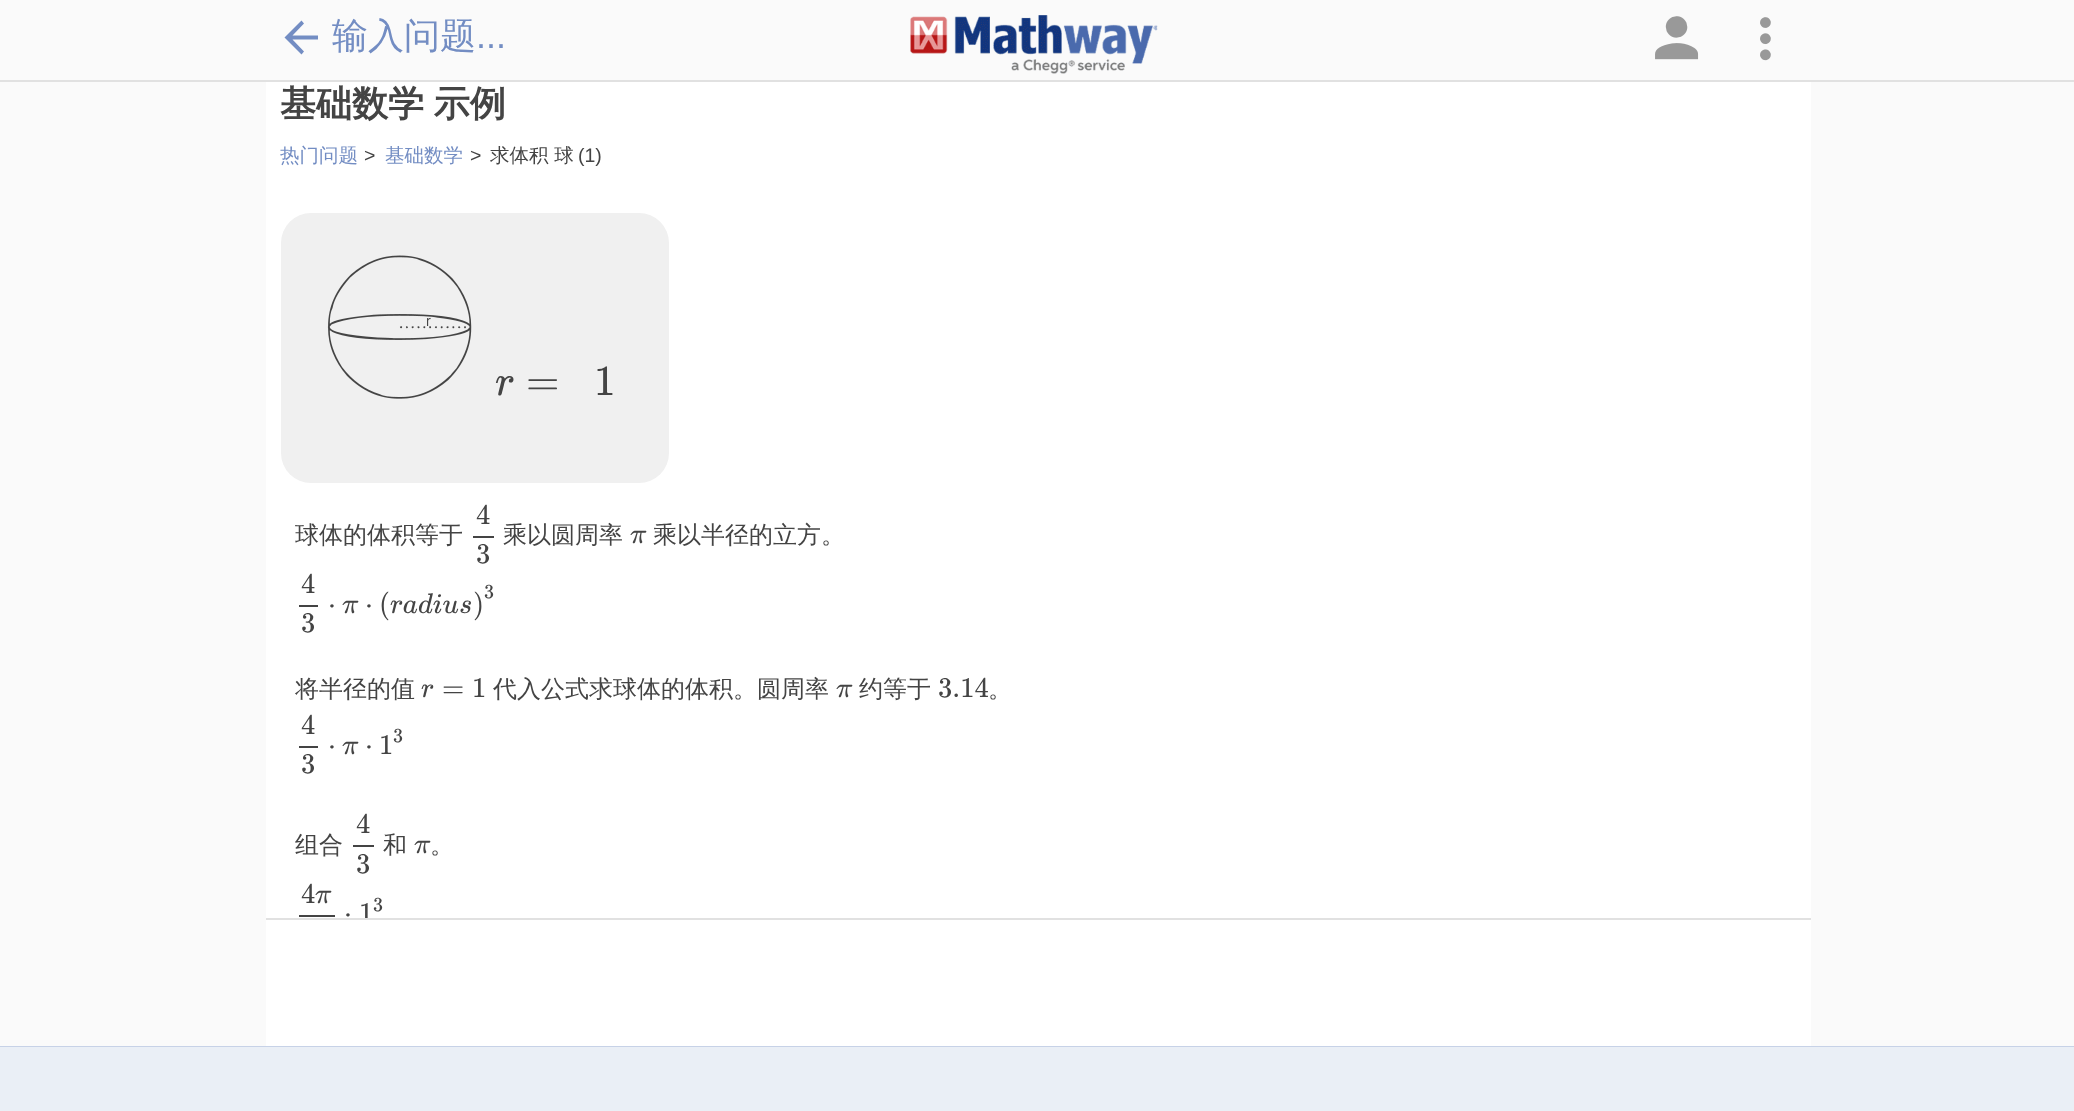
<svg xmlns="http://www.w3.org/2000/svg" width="2074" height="1111">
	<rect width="100%" height="100%" fill="#FAFAFA" />
	<rect x="0" y="80" width="2074" height="2" fill="#E1E1E1" />
	<path d="M301.5 20.5L284.5 37.5L301.5 54.5L304 51.5L292.5 39.5H318V35.5H292.5L304 23.5Z" fill="#738DC3" />
	<text x="332" y="48" font-family="WenQuanYi Zen Hei" font-size="36" font-weight="500" fill="#738DC3">输入问题</text>
	<text x="476" y="48" font-family="Liberation Sans" font-size="36" fill="#738DC3">...</text>
	<image x="910" y="15" width="248" height="59" href="assets/img1.png" />
	<image x="1655" y="16" width="44" height="44" href="assets/img2.png" />
	<image x="1760" y="17" width="11" height="44" href="assets/img3.png" />
	<rect x="266" y="82" width="1545" height="836" fill="#FFFFFF" />
	<text x="280" y="116" word-spacing="-1" font-family="WenQuanYi Zen Hei" font-size="36" font-weight="700" fill="#444444">基础数学 示例</text>
	<text x="280" y="162" font-family="WenQuanYi Zen Hei" font-size="19.5" font-weight="500" fill="#738DC3">热门问题</text>
	<text x="364" y="162" font-family="Liberation Sans" font-size="19.5" fill="#444444">&gt;</text>
	<text x="385" y="162" font-family="WenQuanYi Zen Hei" font-size="19.5" font-weight="500" fill="#738DC3">基础数学</text>
	<text x="470" y="162" font-family="Liberation Sans" font-size="19.5" fill="#444444">&gt;</text>
	<text x="490" y="162" font-family="WenQuanYi Zen Hei" font-size="19.5" font-weight="500" fill="#444444">求体积 球</text>
	<text x="578" y="162" font-family="Liberation Sans" font-size="19.5" fill="#444444">(1)</text>
	<rect x="281" y="213" width="388" height="270" rx="30" fill="#F0F0F0" />
	<image x="327" y="255" width="145" height="144" href="assets/img4.png" />
	<text x="495" y="395" font-family="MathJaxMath" font-size="43" font-style="italic" fill="#444444">r</text>
	<g font-family="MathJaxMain" font-size="43" fill="#444444">
		<text x="526" y="395">=</text>
		<text x="594" y="395">1</text>
	</g>
	<text x="295" y="543" font-family="WenQuanYi Zen Hei" font-size="24" font-weight="500" fill="#444444">球体的体积等于</text>
	<text x="476" y="524" font-family="MathJaxMain" font-size="28.5" fill="#444444">4</text>
	<rect x="473" y="536" width="21" height="2" fill="#444444" />
	<text x="476" y="563" font-family="MathJaxMain" font-size="28.5" fill="#444444">3</text>
	<text x="503" y="543" font-family="WenQuanYi Zen Hei" font-size="24" font-weight="500" fill="#444444">乘以圆周率</text>
	<text x="630" y="543" font-family="MathJaxMath" font-size="28.5" font-style="italic" fill="#444444">π</text>
	<text x="653" y="543" font-family="WenQuanYi Zen Hei" font-size="24" font-weight="500" fill="#444444">乘以半径的立方。</text>
	<text x="301" y="593" font-family="MathJaxMain" font-size="28.5" fill="#444444">4</text>
	<rect x="299" y="605" width="19" height="2" fill="#444444" />
	<g font-family="MathJaxMain" font-size="28.5" fill="#444444">
		<text x="301" y="632">3</text>
		<text x="328" y="613">⋅</text>
	</g>
	<text x="342" y="613" font-family="MathJaxMath" font-size="28.5" font-style="italic" fill="#444444">π</text>
	<g font-family="MathJaxMain" font-size="28.5" fill="#444444">
		<text x="365" y="613">⋅</text>
		<text x="379" y="613">(</text>
	</g>
	<text x="390" y="613" font-family="MathJaxMath" font-size="28.5" font-style="italic" fill="#444444">radius</text>
	<text x="473" y="613" font-family="MathJaxMain" font-size="28.5" fill="#444444">)</text>
	<text x="484" y="598" font-family="MathJaxMain" font-size="20" fill="#444444">3</text>
	<text x="295" y="697" font-family="WenQuanYi Zen Hei" font-size="24" font-weight="500" fill="#444444">将半径的值</text>
	<text x="421" y="697" font-family="MathJaxMath" font-size="28.5" font-style="italic" fill="#444444">r</text>
	<g font-family="MathJaxMain" font-size="28.5" fill="#444444">
		<text x="442" y="697">=</text>
		<text x="472" y="697">1</text>
	</g>
	<text x="493" y="697" font-family="WenQuanYi Zen Hei" font-size="24" font-weight="500" fill="#444444">代入公式求球体的体积。圆周率</text>
	<text x="836" y="697" font-family="MathJaxMath" font-size="28.5" font-style="italic" fill="#444444">π</text>
	<text x="859" y="697" font-family="WenQuanYi Zen Hei" font-size="24" font-weight="500" fill="#444444">约等于</text>
	<text x="938" y="697" font-family="MathJaxMain" font-size="28.5" fill="#444444">3.14</text>
	<text x="988" y="697" font-family="WenQuanYi Zen Hei" font-size="24" font-weight="500" fill="#444444">。</text>
	<text x="301" y="734" font-family="MathJaxMain" font-size="28.5" fill="#444444">4</text>
	<rect x="299" y="746" width="19" height="2" fill="#444444" />
	<g font-family="MathJaxMain" font-size="28.5" fill="#444444">
		<text x="301" y="773">3</text>
		<text x="328" y="754">⋅</text>
	</g>
	<text x="342" y="754" font-family="MathJaxMath" font-size="28.5" font-style="italic" fill="#444444">π</text>
	<g font-family="MathJaxMain" font-size="28.5" fill="#444444">
		<text x="365" y="754">⋅</text>
		<text x="379" y="754">1</text>
	</g>
	<text x="393" y="742" font-family="MathJaxMain" font-size="20" fill="#444444">3</text>
	<text x="295" y="853" font-family="WenQuanYi Zen Hei" font-size="24" font-weight="500" fill="#444444">组合</text>
	<text x="356" y="833" font-family="MathJaxMain" font-size="28.5" fill="#444444">4</text>
	<rect x="353" y="845" width="21" height="2" fill="#444444" />
	<text x="356" y="873" font-family="MathJaxMain" font-size="28.5" fill="#444444">3</text>
	<text x="383" y="853" font-family="WenQuanYi Zen Hei" font-size="24" font-weight="500" fill="#444444">和</text>
	<text x="414" y="853" font-family="MathJaxMath" font-size="28.5" font-style="italic" fill="#444444">π</text>
	<text x="430" y="853" font-family="WenQuanYi Zen Hei" font-size="24" font-weight="500" fill="#444444">。</text>
	<text x="301" y="903" font-family="MathJaxMain" font-size="28.5" fill="#444444">4</text>
	<text x="315" y="903" font-family="MathJaxMath" font-size="28.5" font-style="italic" fill="#444444">π</text>
	<rect x="299" y="915" width="36" height="2" fill="#444444" />
	<g font-family="MathJaxMain" font-size="28.5" fill="#444444">
		<text x="344" y="922">⋅</text>
		<text x="359" y="922">1</text>
	</g>
	<text x="373" y="911" font-family="MathJaxMain" font-size="20" fill="#444444">3</text>
	<rect x="266" y="920" width="1545" height="126" fill="#FFFFFF" />
	<rect x="266" y="918" width="1545" height="2" fill="#E1E1E1" />
	<rect x="0" y="1046" width="2074" height="1" fill="#C7D2E7" />
	<rect x="0" y="1047" width="2074" height="64" fill="#EAEFF6" />
</svg>
